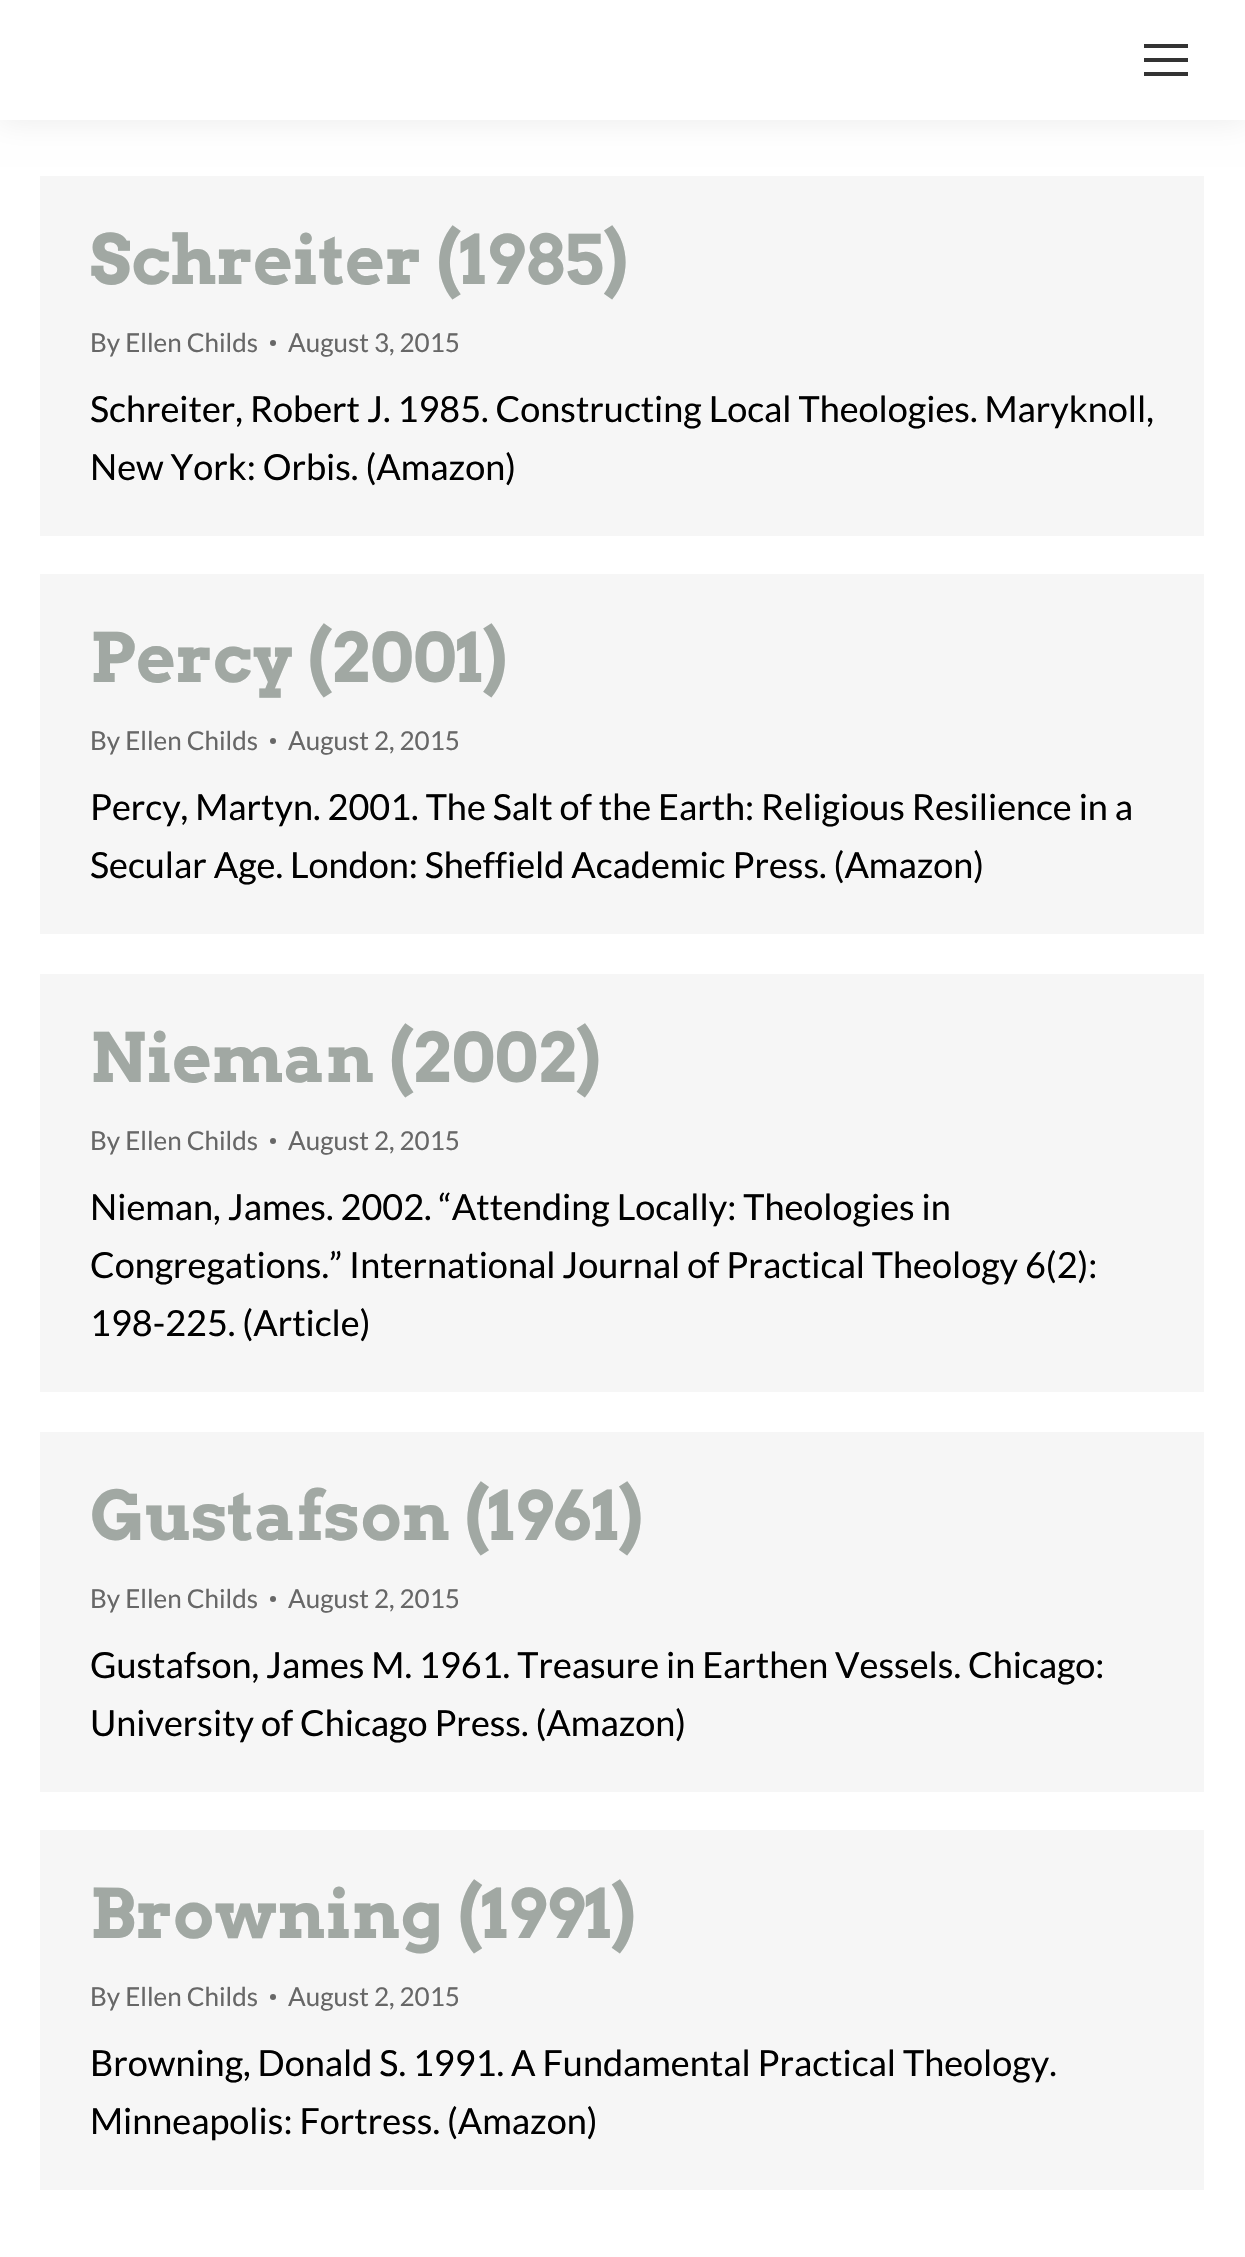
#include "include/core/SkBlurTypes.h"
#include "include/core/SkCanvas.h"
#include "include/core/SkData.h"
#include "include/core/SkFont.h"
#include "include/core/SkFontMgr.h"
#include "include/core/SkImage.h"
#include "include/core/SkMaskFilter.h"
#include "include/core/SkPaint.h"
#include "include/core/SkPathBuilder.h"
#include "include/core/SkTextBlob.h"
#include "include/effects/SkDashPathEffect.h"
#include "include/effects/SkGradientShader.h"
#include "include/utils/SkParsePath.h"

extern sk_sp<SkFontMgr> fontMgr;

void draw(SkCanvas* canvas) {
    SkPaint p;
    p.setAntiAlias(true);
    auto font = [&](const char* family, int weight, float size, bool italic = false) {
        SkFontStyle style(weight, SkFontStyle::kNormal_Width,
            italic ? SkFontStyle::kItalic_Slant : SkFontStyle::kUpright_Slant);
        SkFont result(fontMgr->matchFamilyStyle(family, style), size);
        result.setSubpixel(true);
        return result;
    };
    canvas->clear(0xFFFFFFFF);
    p.setColor(0x12000000);
    p.setMaskFilter(SkMaskFilter::MakeBlur(kNormal_SkBlurStyle, 15));
    canvas->drawRect(SkRect::MakeLTRB(-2, -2, 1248, 122), p);
    p.setMaskFilter(nullptr);
    {
        const struct { float l, t, r, b; SkColor color; } items[] = {
            {0, 0, 1245, 120, 0xFFFFFFFF},
            {1144, 44, 1188, 48, 0xFF333333},
            {1144, 58, 1188, 62, 0xFF333333},
            {1144, 72, 1188, 76, 0xFF333333},
            {40, 176, 1204, 536, 0xFFF6F6F6},
        };
        for (auto [l, t, r, b, color] : items) {
            p.setColor(color);
            canvas->drawRect(SkRect::MakeLTRB(l, t, r, b), p);
        }
    }
    auto font1 = font("Arvo", 700, 68);
    p.setColor(0xFFA1A8A3);
    canvas->drawString("Schreiter (1985)", 90, 284, font1, p);
    auto font2 = font("Lato", 400, 26);
    p.setColor(0xFF676767);
    canvas->drawString("By Ellen Childs", 90, 352, font2, p);
    canvas->drawCircle(273, 343, 3, p);
    canvas->drawString("August 3, 2015", 288, 352, font2, p);
    auto font3 = font("Lato", 400, 36);
    p.setColor(0xFF000000);
    canvas->drawString("Schreiter, Robert J. 1985. Constructing Local Theologies. Maryknoll,", 90, 422, font3, p);
    canvas->drawString("New York: Orbis. (Amazon)", 90, 480, font3, p);
    p.setColor(0xFFF6F6F6);
    canvas->drawRect(SkRect::MakeLTRB(40, 574, 1204, 934), p);
    p.setColor(0xFFA1A8A3);
    canvas->drawString("Percy (2001)", 90, 682, font1, p);
    p.setColor(0xFF676767);
    canvas->drawString("By Ellen Childs", 90, 750, font2, p);
    canvas->drawCircle(273, 741, 3, p);
    canvas->drawString("August 2, 2015", 288, 750, font2, p);
    p.setColor(0xFF000000);
    canvas->drawString("Percy, Martyn. 2001. The Salt of the Earth: Religious Resilience in a", 90, 820, font3, p);
    canvas->drawString("Secular Age. London: Sheffield Academic Press. (Amazon)", 90, 878, font3, p);
    p.setColor(0xFFF6F6F6);
    canvas->drawRect(SkRect::MakeLTRB(40, 974, 1204, 1392), p);
    p.setColor(0xFFA1A8A3);
    canvas->drawString("Nieman (2002)", 90, 1082, font1, p);
    p.setColor(0xFF676767);
    canvas->drawString("By Ellen Childs", 90, 1150, font2, p);
    canvas->drawCircle(273, 1141, 3, p);
    canvas->drawString("August 2, 2015", 288, 1150, font2, p);
    p.setColor(0xFF000000);
    {
        const struct { const char* s; float x, y; } items[] = {
            {"Nieman, James. 2002. “Attending Locally: Theologies in", 90, 1220},
            {"Congregations.” International Journal of Practical Theology 6(2):", 90, 1278},
            {"198-225. (Article)", 90, 1336},
        };
        for (auto [s, x, y] : items) {
            canvas->drawString(s, x, y, font3, p);
        }
    }
    p.setColor(0xFFF6F6F6);
    canvas->drawRect(SkRect::MakeLTRB(40, 1432, 1204, 1792), p);
    p.setColor(0xFFA1A8A3);
    canvas->drawString("Gustafson (1961)", 90, 1540, font1, p);
    p.setColor(0xFF676767);
    canvas->drawString("By Ellen Childs", 90, 1608, font2, p);
    canvas->drawCircle(273, 1599, 3, p);
    canvas->drawString("August 2, 2015", 288, 1608, font2, p);
    p.setColor(0xFF000000);
    canvas->drawString("Gustafson, James M. 1961. Treasure in Earthen Vessels. Chicago:", 90, 1678, font3, p);
    canvas->drawString("University of Chicago Press. (Amazon)", 90, 1736, font3, p);
    p.setColor(0xFFF6F6F6);
    canvas->drawRect(SkRect::MakeLTRB(40, 1830, 1204, 2190), p);
    p.setColor(0xFFA1A8A3);
    canvas->drawString("Browning (1991)", 90, 1938, font1, p);
    p.setColor(0xFF676767);
    canvas->drawString("By Ellen Childs", 90, 2006, font2, p);
    canvas->drawCircle(273, 1997, 3, p);
    canvas->drawString("August 2, 2015", 288, 2006, font2, p);
    p.setColor(0xFF000000);
    canvas->drawString("Browning, Donald S. 1991. A Fundamental Practical Theology.", 90, 2076, font3, p);
    canvas->drawString("Minneapolis: Fortress. (Amazon)", 90, 2134, font3, p);
}
